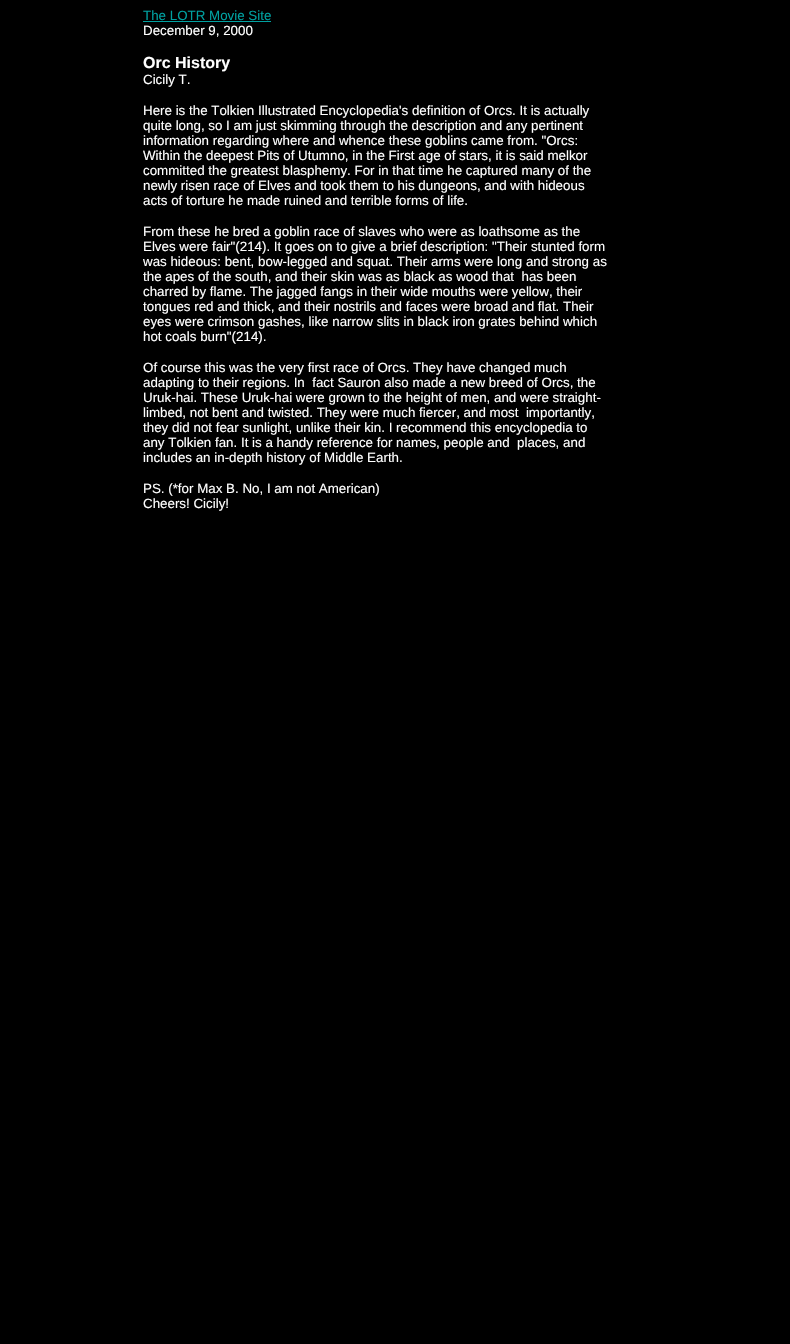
#include "include/core/SkBlurTypes.h"
#include "include/core/SkCanvas.h"
#include "include/core/SkData.h"
#include "include/core/SkFont.h"
#include "include/core/SkFontMgr.h"
#include "include/core/SkImage.h"
#include "include/core/SkMaskFilter.h"
#include "include/core/SkPaint.h"
#include "include/core/SkPathBuilder.h"
#include "include/core/SkTextBlob.h"
#include "include/effects/SkDashPathEffect.h"
#include "include/effects/SkGradientShader.h"
#include "include/utils/SkParsePath.h"

extern sk_sp<SkFontMgr> fontMgr;

void draw(SkCanvas* canvas) {
    SkPaint p;
    p.setAntiAlias(true);
    auto font = [&](const char* family, int weight, float size, bool italic = false) {
        SkFontStyle style(weight, SkFontStyle::kNormal_Width,
            italic ? SkFontStyle::kItalic_Slant : SkFontStyle::kUpright_Slant);
        SkFont result(fontMgr->matchFamilyStyle(family, style), size);
        result.setSubpixel(true);
        return result;
    };
    canvas->clear(0xFF000000);
    auto font1 = font("Liberation Sans", 400, 13.35f);
    p.setColor(0xFF00A0A0);
    canvas->drawString("The LOTR Movie Site", 143, 20, font1, p);
    canvas->drawRect(SkRect::MakeLTRB(143, 21, 271, 22), p);
    p.setColor(0xFFFFFFFF);
    canvas->drawString("December 9, 2000", 143, 35, font1, p);
    auto font2 = font("Liberation Sans", 700, 16);
    canvas->drawString("Orc History", 143, 68, font2, p);
    {
        const struct { const char* s; float x, y; } items[] = {
            {"Cicily T.", 143, 84},
            {"Here is the Tolkien Illustrated Encyclopedia's definition of Orcs. It is actually", 143, 115},
            {"quite long, so I am just skimming through the description and any pertinent", 143, 130},
            {"information regarding where and whence these goblins came from. \"Orcs:", 143, 145},
            {"Within the deepest Pits of Utumno, in the First age of stars, it is said melkor", 143, 160},
            {"committed the greatest blasphemy. For in that time he captured many of the", 143, 175},
            {"newly risen race of Elves and took them to his dungeons, and with hideous", 143, 190},
            {"acts of torture he made ruined and terrible forms of life.", 143, 205},
            {"From these he bred a goblin race of slaves who were as loathsome as the", 143, 236},
            {"Elves were fair\"(214). It goes on to give a brief description: \"Their stunted form", 143, 251},
            {"was hideous: bent, bow-legged and squat. Their arms were long and strong as", 143, 266},
            {"the apes of the south, and their skin was as black as wood that  has been", 143, 281},
            {"charred by flame. The jagged fangs in their wide mouths were yellow, their", 143, 296},
            {"tongues red and thick, and their nostrils and faces were broad and flat. Their", 143, 311},
            {"eyes were crimson gashes, like narrow slits in black iron grates behind which", 143, 326},
            {"hot coals burn\"(214).", 143, 341},
            {"Of course this was the very first race of Orcs. They have changed much", 143, 372},
            {"adapting to their regions. In  fact Sauron also made a new breed of Orcs, the", 143, 387},
            {"Uruk-hai. These Uruk-hai were grown to the height of men, and were straight-", 143, 402},
            {"limbed, not bent and twisted. They were much fiercer, and most  importantly,", 143, 417},
            {"they did not fear sunlight, unlike their kin. I recommend this encyclopedia to", 143, 432},
            {"any Tolkien fan. It is a handy reference for names, people and  places, and", 143, 447},
            {"includes an in-depth history of Middle Earth.", 143, 462},
            {"PS. (*for Max B. No, I am not American)", 143, 493},
            {"Cheers! Cicily!", 143, 508},
        };
        for (auto [s, x, y] : items) {
            canvas->drawString(s, x, y, font1, p);
        }
    }
}
